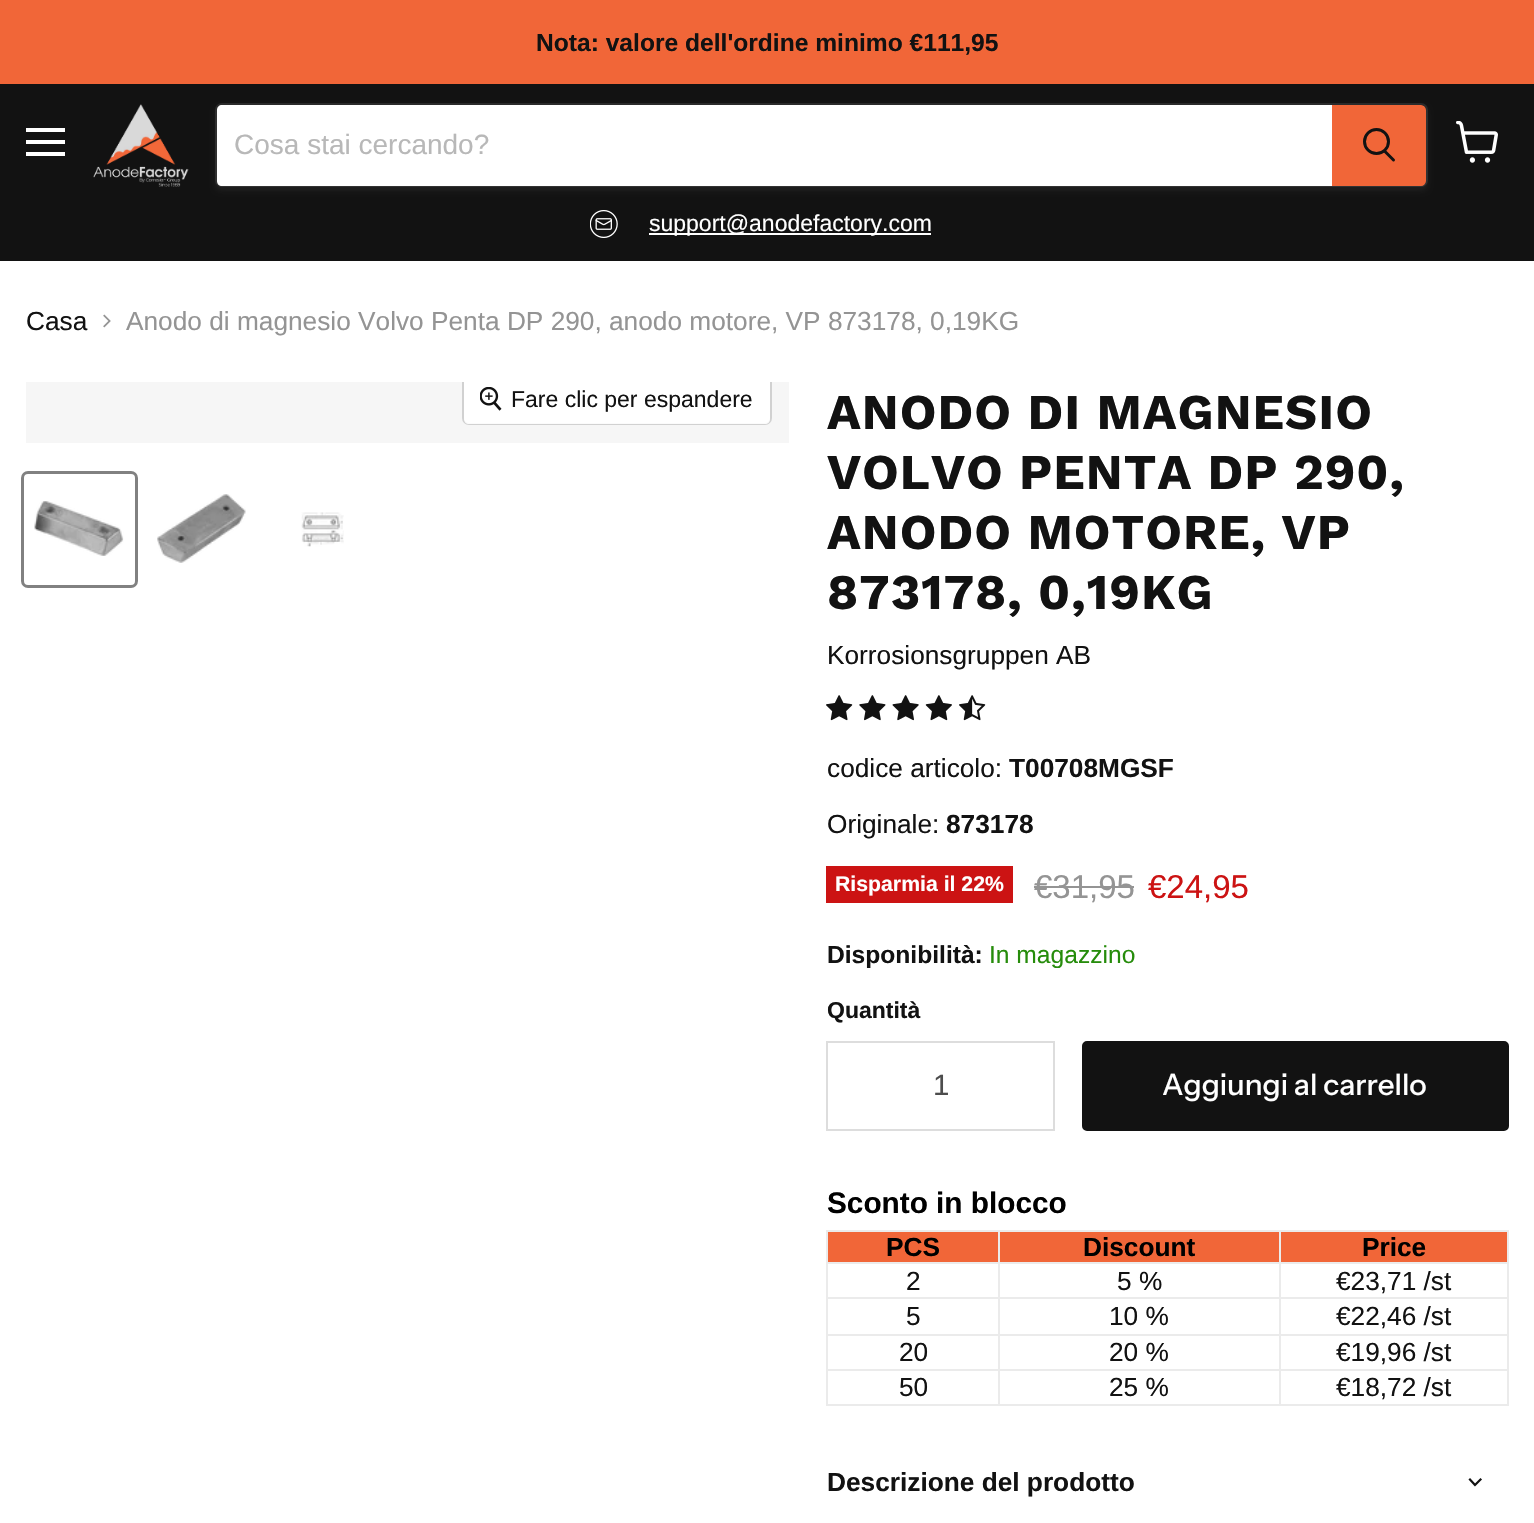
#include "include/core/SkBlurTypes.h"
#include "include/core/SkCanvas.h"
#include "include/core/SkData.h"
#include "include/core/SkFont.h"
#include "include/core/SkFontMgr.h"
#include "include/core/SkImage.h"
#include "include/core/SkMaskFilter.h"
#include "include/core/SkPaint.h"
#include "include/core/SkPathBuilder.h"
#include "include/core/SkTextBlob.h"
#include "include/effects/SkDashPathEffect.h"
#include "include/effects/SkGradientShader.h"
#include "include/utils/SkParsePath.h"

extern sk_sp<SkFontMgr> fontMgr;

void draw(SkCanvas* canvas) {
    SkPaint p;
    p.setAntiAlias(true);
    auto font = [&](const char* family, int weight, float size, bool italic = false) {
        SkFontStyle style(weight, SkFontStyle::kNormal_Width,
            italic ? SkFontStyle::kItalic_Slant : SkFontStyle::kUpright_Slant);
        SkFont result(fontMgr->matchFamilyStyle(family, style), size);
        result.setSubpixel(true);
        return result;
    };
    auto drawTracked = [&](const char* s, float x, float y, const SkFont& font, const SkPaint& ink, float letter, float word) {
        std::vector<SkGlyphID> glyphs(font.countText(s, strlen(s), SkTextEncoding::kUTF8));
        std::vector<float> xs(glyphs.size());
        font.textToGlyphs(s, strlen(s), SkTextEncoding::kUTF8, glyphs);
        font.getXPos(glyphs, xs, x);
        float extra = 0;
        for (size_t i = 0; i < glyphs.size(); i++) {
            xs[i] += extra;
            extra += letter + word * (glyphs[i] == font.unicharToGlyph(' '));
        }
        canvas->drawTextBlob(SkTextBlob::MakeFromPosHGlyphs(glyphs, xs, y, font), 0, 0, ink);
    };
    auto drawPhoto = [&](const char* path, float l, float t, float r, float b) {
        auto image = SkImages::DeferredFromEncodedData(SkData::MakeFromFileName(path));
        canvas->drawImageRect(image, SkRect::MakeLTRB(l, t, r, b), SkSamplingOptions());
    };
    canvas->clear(0xFFFFFFFF);
    p.setColor(0xFFF16638);
    canvas->drawRect(SkRect::MakeLTRB(0, 0, 1534, 84), p);
    auto font1 = font("Liberation Sans", 700, 24.6f);
    p.setColor(0xFF121212);
    canvas->drawString("Nota: valore dell'ordine minimo €111,95", 536, 51, font1, p);
    {
        const struct { float l, t, r, b; SkColor color; } items[] = {
            {0, 84, 1534, 261, 0xFF121212},
            {26, 128, 65, 132, 0xFFFFFFFF},
            {26, 140, 65, 144, 0xFFFFFFFF},
            {26, 152, 65, 156, 0xFFFFFFFF},
        };
        for (auto [l, t, r, b, color] : items) {
            p.setColor(color);
            canvas->drawRect(SkRect::MakeLTRB(l, t, r, b), p);
        }
    }
    drawPhoto("media/1.png", 93, 104, 189, 187);
    p.setColor(0x1C808080);
    p.setMaskFilter(SkMaskFilter::MakeBlur(kNormal_SkBlurStyle, 2.5f));
    canvas->drawRoundRect(SkRect::MakeLTRB(215, 107, 1428, 191), 7, 7, p);
    p.setMaskFilter(nullptr);
    p.setStyle(SkPaint::kStroke_Style);
    p.setStrokeWidth(2);
    p.setColor(0x33808080);
    canvas->drawRoundRect(SkRect::MakeLTRB(216, 104, 1427, 186), 6, 6, p);
    p.setStyle(SkPaint::kFill_Style);
    p.setColor(0xFFFFFFFF);
    canvas->drawPath(SkPathBuilder().moveTo(222, 105).lineTo(1332, 105).lineTo(1332, 186).lineTo(222, 186).cubicTo(219, 186, 217, 184, 217, 181).lineTo(217, 110).cubicTo(217, 107, 219, 105, 222, 105).close().detach(), p);
    auto font2 = font("Liberation Sans", 400, 28);
    p.setColor(0xFFB8B8B8);
    canvas->drawString("Cosa stai cercando?", 234, 154, font2, p);
    p.setColor(0xFFF16638);
    canvas->drawPath(SkPathBuilder().moveTo(1333, 106).lineTo(1421, 106).cubicTo(1423, 106, 1425, 108, 1425, 110).lineTo(1425, 181).cubicTo(1425, 183, 1423, 185, 1421, 185).lineTo(1333, 185).close().detach(), p);
    p.setStyle(SkPaint::kStroke_Style);
    canvas->drawPath(SkPathBuilder().moveTo(1333, 106).lineTo(1421, 106).cubicTo(1423, 106, 1425, 108, 1425, 110).lineTo(1425, 181).cubicTo(1425, 183, 1423, 185, 1421, 185).lineTo(1333, 185).close().detach(), p);
    p.setStrokeWidth(3);
    p.setStrokeCap(SkPaint::kRound_Cap);
    p.setColor(0xFF121212);
    canvas->drawPath(SkPathBuilder().moveTo(1393.5f, 160).lineTo(1385, 151.5f).detach(), p);
    p.setStrokeCap(SkPaint::kButt_Cap);
    canvas->drawCircle(1376.5f, 141.5f, 12, p);
    drawPhoto("media/2.png", 590, 210, 618, 238);
    p.setStyle(SkPaint::kFill_Style);
    p.setColor(0xFFFFFFFF);
    canvas->drawRect(SkRect::MakeLTRB(649, 233, 931, 235), p);
    auto font3 = font("Liberation Sans", 400, 23);
    canvas->drawString("support@anodefactory.com", 649, 231, font3, p);
    drawPhoto("media/3.png", 1456, 121, 1498, 163);
    auto font4 = font("Liberation Sans", 400, 26.25f);
    p.setColor(0xFF121212);
    canvas->drawString("Casa", 26, 330, font4, p);
    drawPhoto("media/4.png", 103, 314, 111, 328);
    p.setColor(0xFF949494);
    canvas->drawString("Anodo di magnesio Volvo Penta DP 290, anodo motore, VP 873178, 0,19KG", 126, 330, font4, p);
    p.setColor(0xFFF6F6F6);
    canvas->drawRect(SkRect::MakeLTRB(26, 382, 789, 443), p);
    canvas->save();
    canvas->clipRect(SkRect::MakeLTRB(26, 382, 789, 443));
    p.setStyle(SkPaint::kStroke_Style);
    p.setStrokeWidth(2);
    p.setColor(0xFFD1D1D1);
    canvas->drawRoundRect(SkRect::MakeLTRB(463, 374, 771, 424), 6, 6, p);
    canvas->restore();
    p.setStyle(SkPaint::kFill_Style);
    p.setColor(0xE6FFFFFF);
    canvas->drawPath(SkPathBuilder().moveTo(464, 382).lineTo(770, 382).lineTo(770, 419).cubicTo(770, 422, 768, 424, 765, 424).lineTo(469, 424).cubicTo(466, 424, 464, 422, 464, 419).close().detach(), p);
    drawPhoto("media/5.png", 480, 387, 502, 411);
    p.setColor(0xFF121212);
    canvas->drawString("Fare clic per espandere", 511, 407, font3, p);
    p.setStyle(SkPaint::kStroke_Style);
    p.setStrokeWidth(3);
    p.setColor(0xFF818181);
    canvas->drawRoundRect(SkRect::MakeLTRB(22.5f, 472.5f, 136.5f, 586.5f), 5.5f, 5.5f, p);
    drawPhoto("media/6.png", 34, 501, 124, 556);
    drawPhoto("media/7.png", 157, 494, 246, 563);
    drawPhoto("media/8.png", 301, 512, 344, 547);
    auto font5 = font("Work Sans", 700, 49.9f);
    p.setStyle(SkPaint::kFill_Style);
    p.setColor(0xFF121212);
    {
        const struct { const char* s; float x, y; } items[] = {
            {"ANODO DI MAGNESIO", 827, 429},
            {"VOLVO PENTA DP 290,", 827, 489},
            {"ANODO MOTORE, VP", 827, 549},
            {"873178, 0,19KG", 827, 609},
        };
        for (auto [s, x, y] : items) {
            drawTracked(s, x, y, font5, p, 1, 0);
        }
    }
    canvas->drawString("Korrosionsgruppen AB", 827, 664, font4, p);
    drawPhoto("media/9.png", 826, 695, 853, 721);
    drawPhoto("media/10.png", 859, 695, 886, 721);
    drawPhoto("media/11.png", 892, 695, 919, 721);
    drawPhoto("media/12.png", 925, 695, 952, 721);
    drawPhoto("media/13.png", 959, 695, 986, 721);
    canvas->drawString("codice articolo:", 827, 777, font4, p);
    auto font6 = font("Liberation Sans", 700, 26.25f);
    canvas->drawString("T00708MGSF", 1009, 777, font6, p);
    canvas->drawString("Originale:", 827, 833, font4, p);
    canvas->drawString("873178", 946, 833, font6, p);
    p.setColor(0xFFCC1313);
    canvas->drawRect(SkRect::MakeLTRB(826, 866, 1013, 903), p);
    auto font7 = font("Liberation Sans", 700, 21.25f);
    p.setColor(0xFFFFFFFF);
    canvas->drawString("Risparmia il 22%", 835, 891, font7, p);
    auto font8 = font("Liberation Sans", 400, 33);
    p.setColor(0xFF949494);
    canvas->drawString("€31,95", 1034, 898, font8, p);
    canvas->drawRect(SkRect::MakeLTRB(1034, 886, 1134, 888), p);
    p.setColor(0xFFCC1313);
    canvas->drawString("€24,95", 1148, 898, font8, p);
    p.setColor(0xFF121212);
    canvas->drawString("Disponibilità:", 827, 963, font1, p);
    auto font9 = font("Liberation Sans", 400, 24.6f);
    p.setColor(0xFF268C0B);
    canvas->drawString("In magazzino", 989, 963, font9, p);
    auto font10 = font("Liberation Sans", 700, 23);
    p.setColor(0xFF121212);
    canvas->drawString("Quantità", 827, 1018, font10, p);
    p.setStyle(SkPaint::kStroke_Style);
    p.setStrokeWidth(2);
    p.setColor(0xFFDDDDDD);
    canvas->drawRect(SkRect::MakeLTRB(827, 1042, 1054, 1130), p);
    auto font11 = font("Liberation Sans", 400, 29.5f);
    p.setStyle(SkPaint::kFill_Style);
    p.setColor(0xFF4D4D4D);
    canvas->drawString("1", 933, 1095, font11, p);
    p.setColor(0xFF121212);
    canvas->drawRoundRect(SkRect::MakeLTRB(1083, 1042, 1508, 1130), 4, 4, p);
    p.setStyle(SkPaint::kStroke_Style);
    canvas->drawRoundRect(SkRect::MakeLTRB(1083, 1042, 1508, 1130), 4, 4, p);
    auto font12 = font("Instrument Sans", 500, 29.5f);
    p.setStyle(SkPaint::kFill_Style);
    p.setColor(0xFFFFFFFF);
    canvas->drawString("Aggiungi al carrello", 1162, 1095, font12, p);
    auto font13 = font("Liberation Sans", 700, 29.75f);
    p.setColor(0xFF000000);
    canvas->drawString("Sconto in blocco", 827, 1213, font13, p);
    {
        const struct { float l, t, r, b; SkColor color; } items[] = {
            {828, 1232, 998, 1262, 0xFFF16638},
            {1279, 1230, 1509, 1232, 0xFFEBEBEB},
            {1279, 1262, 1509, 1264, 0xFFEBEBEB},
            {1279, 1297, 1509, 1299, 0xFFEBEBEB},
            {1279, 1334, 1509, 1336, 0xFFEBEBEB},
            {1279, 1369, 1509, 1371, 0xFFEBEBEB},
            {1507, 1369, 1509, 1405, 0xFFEBEBEB},
            {1279, 1404, 1509, 1406, 0xFFEBEBEB},
            {1279, 1369, 1281, 1405, 0xFFEBEBEB},
            {998, 1369, 1281, 1371, 0xFFEBEBEB},
            {1279, 1334, 1281, 1370, 0xFFEBEBEB},
            {998, 1334, 1281, 1336, 0xFFEBEBEB},
            {1279, 1297, 1281, 1335, 0xFFEBEBEB},
            {998, 1297, 1281, 1299, 0xFFEBEBEB},
            {1279, 1262, 1281, 1299, 0xFFEBEBEB},
            {998, 1262, 1281, 1264, 0xFFEBEBEB},
            {1279, 1230, 1281, 1264, 0xFFEBEBEB},
            {998, 1230, 1281, 1232, 0xFFEBEBEB},
            {998, 1404, 1281, 1406, 0xFFEBEBEB},
            {998, 1369, 1000, 1405, 0xFFEBEBEB},
            {826, 1369, 999, 1371, 0xFFEBEBEB},
            {998, 1334, 1000, 1370, 0xFFEBEBEB},
            {826, 1334, 999, 1336, 0xFFEBEBEB},
            {998, 1297, 1000, 1335, 0xFFEBEBEB},
            {826, 1297, 999, 1299, 0xFFEBEBEB},
            {998, 1262, 1000, 1299, 0xFFEBEBEB},
            {826, 1262, 999, 1264, 0xFFEBEBEB},
            {998, 1230, 1000, 1264, 0xFFEBEBEB},
            {826, 1230, 999, 1232, 0xFFEBEBEB},
            {826, 1404, 999, 1406, 0xFFEBEBEB},
            {826, 1369, 828, 1405, 0xFFEBEBEB},
            {826, 1334, 828, 1370, 0xFFEBEBEB},
            {826, 1297, 828, 1335, 0xFFEBEBEB},
            {826, 1262, 828, 1299, 0xFFEBEBEB},
            {826, 1230, 828, 1264, 0xFFEBEBEB},
        };
        for (auto [l, t, r, b, color] : items) {
            p.setColor(color);
            canvas->drawRect(SkRect::MakeLTRB(l, t, r, b), p);
        }
    }
    p.setColor(0xFF000000);
    canvas->drawString("PCS", 886, 1256, font6, p);
    p.setColor(0xFFF16638);
    canvas->drawRect(SkRect::MakeLTRB(1000, 1232, 1279, 1262), p);
    p.setColor(0xFF000000);
    canvas->drawString("Discount", 1083, 1256, font6, p);
    {
        const struct { float l, t, r, b; SkColor color; } items[] = {
            {1281, 1232, 1507, 1262, 0xFFF16638},
            {1507, 1334, 1509, 1370, 0xFFEBEBEB},
            {1507, 1297, 1509, 1335, 0xFFEBEBEB},
            {1507, 1262, 1509, 1299, 0xFFEBEBEB},
            {1507, 1230, 1509, 1264, 0xFFEBEBEB},
        };
        for (auto [l, t, r, b, color] : items) {
            p.setColor(color);
            canvas->drawRect(SkRect::MakeLTRB(l, t, r, b), p);
        }
    }
    p.setColor(0xFF000000);
    canvas->drawString("Price", 1362, 1256, font6, p);
    p.setColor(0xFF121212);
    {
        const struct { const char* s; float x, y; } items[] = {
            {"2", 906, 1290},
            {"5 %", 1117, 1290},
            {"€23,71 /st", 1336, 1290},
            {"5", 906, 1325},
            {"10 %", 1109, 1325},
            {"€22,46 /st", 1336, 1325},
            {"20", 899, 1361},
            {"20 %", 1109, 1361},
            {"€19,96 /st", 1336, 1361},
            {"50", 899, 1396},
            {"25 %", 1109, 1396},
            {"€18,72 /st", 1336, 1396},
        };
        for (auto [s, x, y] : items) {
            canvas->drawString(s, x, y, font4, p);
        }
    }
    canvas->drawString("Descrizione del prodotto", 827, 1491, font6, p);
    p.setStyle(SkPaint::kStroke_Style);
    p.setStrokeWidth(2.2f);
    p.setStrokeCap(SkPaint::kSquare_Cap);
    canvas->drawPath(SkPathBuilder().moveTo(1475, 1485).lineTo(1480.5f, 1479.5f).moveTo(1475, 1485).lineTo(1470, 1479.5f).detach(), p);
}
